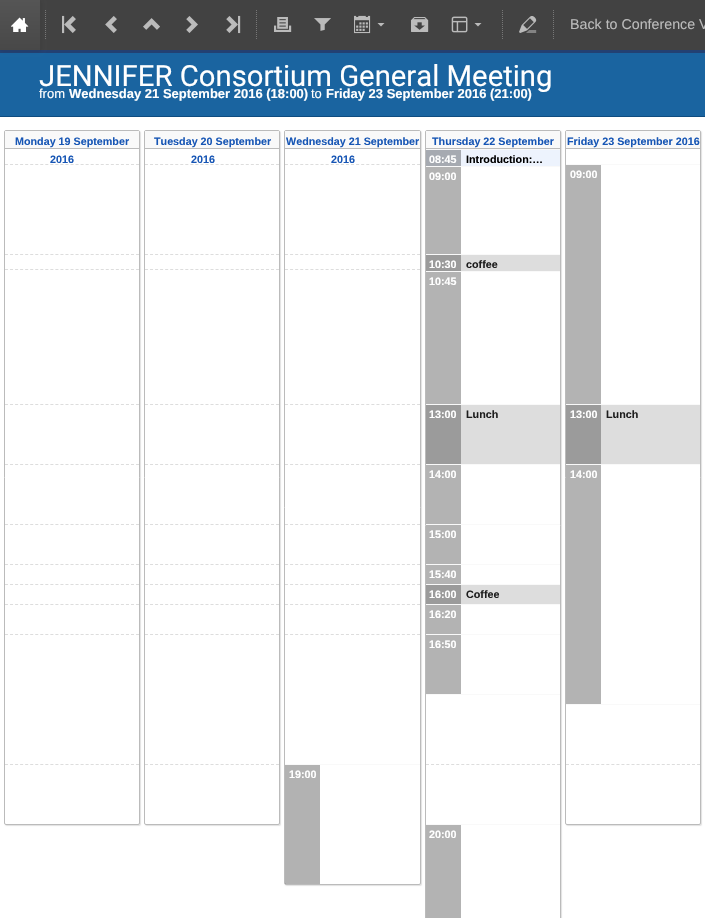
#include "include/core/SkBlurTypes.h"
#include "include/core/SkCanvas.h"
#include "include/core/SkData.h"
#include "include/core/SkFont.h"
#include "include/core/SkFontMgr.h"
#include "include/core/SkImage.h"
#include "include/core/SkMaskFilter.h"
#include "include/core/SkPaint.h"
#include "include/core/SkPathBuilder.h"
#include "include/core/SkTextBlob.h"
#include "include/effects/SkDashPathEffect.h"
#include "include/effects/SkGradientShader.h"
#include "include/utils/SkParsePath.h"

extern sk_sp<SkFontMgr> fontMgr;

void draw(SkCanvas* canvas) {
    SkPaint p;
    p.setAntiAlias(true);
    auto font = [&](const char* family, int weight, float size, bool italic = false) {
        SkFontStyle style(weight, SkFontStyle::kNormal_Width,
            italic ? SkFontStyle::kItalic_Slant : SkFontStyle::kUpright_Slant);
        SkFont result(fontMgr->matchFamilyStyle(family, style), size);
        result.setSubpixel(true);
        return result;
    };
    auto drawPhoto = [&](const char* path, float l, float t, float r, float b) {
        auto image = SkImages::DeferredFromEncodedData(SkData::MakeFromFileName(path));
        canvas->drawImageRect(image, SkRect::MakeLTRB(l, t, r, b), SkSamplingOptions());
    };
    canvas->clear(0xFFFFFFFF);
    {
        const struct { float l, t, r, b; SkColor color; } items[] = {
            {40, 0, 705, 50, 0xFF424242},
            {0, 53, 705, 116, 0xFF1A64A0},
            {0, 50, 705, 53, 0xFF234173},
        };
        for (auto [l, t, r, b, color] : items) {
            p.setColor(color);
            canvas->drawRect(SkRect::MakeLTRB(l, t, r, b), p);
        }
    }
    p.setColor(0x1A141414);
    p.setMaskFilter(SkMaskFilter::MakeBlur(kNormal_SkBlurStyle, 2));
    canvas->drawRect(SkRect::MakeLTRB(1, 1, 41, 51), p);
    p.setMaskFilter(nullptr);
    {
        const SkColor colors[] = {0xFF555555, 0xFF484848};
        const float stops[] = {0, 1};
        const SkPoint ends[] = {{20, 0}, {20, 50}};
        p.setShader(SkGradientShader::MakeLinear(ends, colors, stops, 2, SkTileMode::kClamp));
        p.setAlpha(255);
    }
    canvas->drawRect(SkRect::MakeLTRB(0, 0, 40, 50), p);
    drawPhoto("media/1.png", 11, 17, 29, 32);
    p.setStyle(SkPaint::kStroke_Style);
    p.setStrokeWidth(1);
    p.setShader(nullptr);
    p.setColor(0xFF777777);
    p.setPathEffect(SkDashPathEffect::Make({{1, 1}}, 0));
    canvas->drawPath(SkPathBuilder().moveTo(45.5f, 10).lineTo(45.5f, 40).detach(), p);
    p.setPathEffect(nullptr);
    drawPhoto("media/2.png", 62, 15, 76, 34);
    drawPhoto("media/3.png", 105, 16, 117, 33);
    drawPhoto("media/4.png", 143, 18, 160, 30);
    drawPhoto("media/5.png", 186, 16, 198, 33);
    drawPhoto("media/6.png", 226, 15, 241, 34);
    p.setPathEffect(SkDashPathEffect::Make({{1, 1}}, 0));
    canvas->drawPath(SkPathBuilder().moveTo(256.5f, 10).lineTo(256.5f, 40).detach(), p);
    p.setPathEffect(nullptr);
    drawPhoto("media/7.png", 274, 17, 292, 32);
    drawPhoto("media/8.png", 314, 18, 331, 31);
    drawPhoto("media/9.png", 354, 15, 371, 34);
    p.setStyle(SkPaint::kFill_Style);
    p.setColor(0xFFBBBBBB);
    canvas->drawPath(SkPathBuilder().moveTo(377.5f, 23).lineTo(381, 26.5f).lineTo(384.5f, 23).close().detach(), p);
    drawPhoto("media/10.png", 411, 17, 429, 32);
    drawPhoto("media/11.png", 451, 16, 468, 33);
    canvas->drawPath(SkPathBuilder().moveTo(474.5f, 23).lineTo(478, 26.5f).lineTo(481.5f, 23).close().detach(), p);
    p.setStyle(SkPaint::kStroke_Style);
    p.setColor(0xFF777777);
    p.setPathEffect(SkDashPathEffect::Make({{1, 1}}, 0));
    canvas->drawPath(SkPathBuilder().moveTo(502.5f, 10).lineTo(502.5f, 40).detach(), p);
    p.setPathEffect(nullptr);
    drawPhoto("media/12.png", 519, 16, 537, 33);
    p.setPathEffect(SkDashPathEffect::Make({{1, 1}}, 0));
    canvas->drawPath(SkPathBuilder().moveTo(553.5f, 10).lineTo(553.5f, 40).detach(), p);
    p.setPathEffect(nullptr);
    auto font1 = font("Liberation Sans", 400, 14.25f);
    p.setStyle(SkPaint::kFill_Style);
    p.setColor(0xFFBBBBBB);
    canvas->drawString("Back to Conference V", 570, 29, font1, p);
    p.setColor(0xFF0F4C80);
    canvas->drawRect(SkRect::MakeLTRB(0, 116, 705, 117), p);
    auto font2 = font("Roboto", 400, 29.3f);
    p.setColor(0xFFFFFFFF);
    canvas->drawString("JENNIFER Consortium General Meeting", 39, 86, font2, p);
    auto font3 = font("Liberation Sans", 400, 13);
    canvas->drawString("from", 39, 98, font3, p);
    auto font4 = font("Liberation Sans", 700, 13);
    canvas->drawString("Wednesday 21 September 2016 (18:00)", 69, 98, font4, p);
    canvas->drawString("to", 311, 98, font3, p);
    canvas->drawString("Friday 23 September 2016 (21:00)", 326, 98, font4, p);
    p.setColor(0xFFE1E1E1);
    p.setMaskFilter(SkMaskFilter::MakeBlur(kNormal_SkBlurStyle, 0.5f));
    canvas->drawRoundRect(SkRect::MakeLTRB(5, 131, 141, 826), 2, 2, p);
    p.setMaskFilter(nullptr);
    p.setColor(0xFFFFFFFF);
    canvas->drawRoundRect(SkRect::MakeLTRB(4.5f, 130.5f, 139.5f, 824.5f), 1.5f, 1.5f, p);
    p.setStyle(SkPaint::kStroke_Style);
    p.setColor(0xFFBBBBBB);
    canvas->drawRoundRect(SkRect::MakeLTRB(4.5f, 130.5f, 139.5f, 824.5f), 1.5f, 1.5f, p);
    p.setStyle(SkPaint::kFill_Style);
    p.setColor(0xFFF9F9F9);
    canvas->drawRect(SkRect::MakeLTRB(5, 131, 139, 148), p);
    p.setColor(0xFFBBBBBB);
    canvas->drawRect(SkRect::MakeLTRB(5, 148, 139, 149), p);
    auto font5 = font("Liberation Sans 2", 700, 10.75f);
    p.setColor(0xFF1756B5);
    canvas->drawString("Monday 19 September", 15, 145, font5, p);
    canvas->drawString("2016", 50, 163, font5, p);
    p.setStyle(SkPaint::kStroke_Style);
    p.setColor(0xFFDDDDDD);
    p.setPathEffect(SkDashPathEffect::Make({{3, 2.04f}}, 0));
    canvas->drawPath(SkPathBuilder().moveTo(5, 164.5f).lineTo(139, 164.5f).detach(), p);
    p.setPathEffect(nullptr);
    p.setPathEffect(SkDashPathEffect::Make({{3, 2.04f}}, 0));
    canvas->drawPath(SkPathBuilder().moveTo(5, 254.5f).lineTo(139, 254.5f).detach(), p);
    p.setPathEffect(nullptr);
    p.setPathEffect(SkDashPathEffect::Make({{3, 2.04f}}, 0));
    canvas->drawPath(SkPathBuilder().moveTo(5, 269.5f).lineTo(139, 269.5f).detach(), p);
    p.setPathEffect(nullptr);
    p.setPathEffect(SkDashPathEffect::Make({{3, 2.04f}}, 0));
    canvas->drawPath(SkPathBuilder().moveTo(5, 404.5f).lineTo(139, 404.5f).detach(), p);
    p.setPathEffect(nullptr);
    p.setPathEffect(SkDashPathEffect::Make({{3, 2.04f}}, 0));
    canvas->drawPath(SkPathBuilder().moveTo(5, 464.5f).lineTo(139, 464.5f).detach(), p);
    p.setPathEffect(nullptr);
    p.setPathEffect(SkDashPathEffect::Make({{3, 2.04f}}, 0));
    canvas->drawPath(SkPathBuilder().moveTo(5, 524.5f).lineTo(139, 524.5f).detach(), p);
    p.setPathEffect(nullptr);
    p.setPathEffect(SkDashPathEffect::Make({{3, 2.04f}}, 0));
    canvas->drawPath(SkPathBuilder().moveTo(5, 564.5f).lineTo(139, 564.5f).detach(), p);
    p.setPathEffect(nullptr);
    p.setPathEffect(SkDashPathEffect::Make({{3, 2.04f}}, 0));
    canvas->drawPath(SkPathBuilder().moveTo(5, 584.5f).lineTo(139, 584.5f).detach(), p);
    p.setPathEffect(nullptr);
    p.setPathEffect(SkDashPathEffect::Make({{3, 2.04f}}, 0));
    canvas->drawPath(SkPathBuilder().moveTo(5, 604.5f).lineTo(139, 604.5f).detach(), p);
    p.setPathEffect(nullptr);
    p.setPathEffect(SkDashPathEffect::Make({{3, 2.04f}}, 0));
    canvas->drawPath(SkPathBuilder().moveTo(5, 634.5f).lineTo(139, 634.5f).detach(), p);
    p.setPathEffect(nullptr);
    p.setPathEffect(SkDashPathEffect::Make({{3, 2.04f}}, 0));
    canvas->drawPath(SkPathBuilder().moveTo(5, 764.5f).lineTo(139, 764.5f).detach(), p);
    p.setPathEffect(nullptr);
    p.setStyle(SkPaint::kFill_Style);
    p.setColor(0xFFE1E1E1);
    p.setMaskFilter(SkMaskFilter::MakeBlur(kNormal_SkBlurStyle, 0.5f));
    canvas->drawRoundRect(SkRect::MakeLTRB(145, 131, 281, 826), 2, 2, p);
    p.setMaskFilter(nullptr);
    p.setColor(0xFFFFFFFF);
    canvas->drawRoundRect(SkRect::MakeLTRB(144.5f, 130.5f, 279.5f, 824.5f), 1.5f, 1.5f, p);
    p.setStyle(SkPaint::kStroke_Style);
    p.setColor(0xFFBBBBBB);
    canvas->drawRoundRect(SkRect::MakeLTRB(144.5f, 130.5f, 279.5f, 824.5f), 1.5f, 1.5f, p);
    p.setStyle(SkPaint::kFill_Style);
    p.setColor(0xFFF9F9F9);
    canvas->drawRect(SkRect::MakeLTRB(145, 131, 279, 148), p);
    p.setColor(0xFFBBBBBB);
    canvas->drawRect(SkRect::MakeLTRB(145, 148, 279, 149), p);
    p.setColor(0xFF1756B5);
    canvas->drawString("Tuesday 20 September", 154, 145, font5, p);
    canvas->drawString("2016", 191, 163, font5, p);
    p.setStyle(SkPaint::kStroke_Style);
    p.setColor(0xFFDDDDDD);
    p.setPathEffect(SkDashPathEffect::Make({{3, 2.04f}}, 0));
    canvas->drawPath(SkPathBuilder().moveTo(145, 164.5f).lineTo(279, 164.5f).detach(), p);
    p.setPathEffect(nullptr);
    p.setPathEffect(SkDashPathEffect::Make({{3, 2.04f}}, 0));
    canvas->drawPath(SkPathBuilder().moveTo(145, 254.5f).lineTo(279, 254.5f).detach(), p);
    p.setPathEffect(nullptr);
    p.setPathEffect(SkDashPathEffect::Make({{3, 2.04f}}, 0));
    canvas->drawPath(SkPathBuilder().moveTo(145, 269.5f).lineTo(279, 269.5f).detach(), p);
    p.setPathEffect(nullptr);
    p.setPathEffect(SkDashPathEffect::Make({{3, 2.04f}}, 0));
    canvas->drawPath(SkPathBuilder().moveTo(145, 404.5f).lineTo(279, 404.5f).detach(), p);
    p.setPathEffect(nullptr);
    p.setPathEffect(SkDashPathEffect::Make({{3, 2.04f}}, 0));
    canvas->drawPath(SkPathBuilder().moveTo(145, 464.5f).lineTo(279, 464.5f).detach(), p);
    p.setPathEffect(nullptr);
    p.setPathEffect(SkDashPathEffect::Make({{3, 2.04f}}, 0));
    canvas->drawPath(SkPathBuilder().moveTo(145, 524.5f).lineTo(279, 524.5f).detach(), p);
    p.setPathEffect(nullptr);
    p.setPathEffect(SkDashPathEffect::Make({{3, 2.04f}}, 0));
    canvas->drawPath(SkPathBuilder().moveTo(145, 564.5f).lineTo(279, 564.5f).detach(), p);
    p.setPathEffect(nullptr);
    p.setPathEffect(SkDashPathEffect::Make({{3, 2.04f}}, 0));
    canvas->drawPath(SkPathBuilder().moveTo(145, 584.5f).lineTo(279, 584.5f).detach(), p);
    p.setPathEffect(nullptr);
    p.setPathEffect(SkDashPathEffect::Make({{3, 2.04f}}, 0));
    canvas->drawPath(SkPathBuilder().moveTo(145, 604.5f).lineTo(279, 604.5f).detach(), p);
    p.setPathEffect(nullptr);
    p.setPathEffect(SkDashPathEffect::Make({{3, 2.04f}}, 0));
    canvas->drawPath(SkPathBuilder().moveTo(145, 634.5f).lineTo(279, 634.5f).detach(), p);
    p.setPathEffect(nullptr);
    p.setPathEffect(SkDashPathEffect::Make({{3, 2.04f}}, 0));
    canvas->drawPath(SkPathBuilder().moveTo(145, 764.5f).lineTo(279, 764.5f).detach(), p);
    p.setPathEffect(nullptr);
    p.setStyle(SkPaint::kFill_Style);
    p.setColor(0xFFE1E1E1);
    p.setMaskFilter(SkMaskFilter::MakeBlur(kNormal_SkBlurStyle, 0.5f));
    canvas->drawRoundRect(SkRect::MakeLTRB(285, 131, 422, 886), 2, 2, p);
    p.setMaskFilter(nullptr);
    p.setColor(0xFFFFFFFF);
    canvas->drawRoundRect(SkRect::MakeLTRB(284.5f, 130.5f, 420.5f, 884.5f), 1.5f, 1.5f, p);
    p.setStyle(SkPaint::kStroke_Style);
    p.setColor(0xFFBBBBBB);
    canvas->drawRoundRect(SkRect::MakeLTRB(284.5f, 130.5f, 420.5f, 884.5f), 1.5f, 1.5f, p);
    p.setStyle(SkPaint::kFill_Style);
    p.setColor(0xFFF9F9F9);
    canvas->drawRect(SkRect::MakeLTRB(285, 131, 420, 148), p);
    p.setColor(0xFFBBBBBB);
    canvas->drawRect(SkRect::MakeLTRB(285, 148, 420, 149), p);
    p.setColor(0xFF1756B5);
    canvas->drawString("Wednesday 21 September", 286, 145, font5, p);
    canvas->drawString("2016", 331, 163, font5, p);
    p.setStyle(SkPaint::kStroke_Style);
    p.setColor(0xFFDDDDDD);
    p.setPathEffect(SkDashPathEffect::Make({{3, 2.08f}}, 0));
    canvas->drawPath(SkPathBuilder().moveTo(285, 164.5f).lineTo(420, 164.5f).detach(), p);
    p.setPathEffect(nullptr);
    p.setPathEffect(SkDashPathEffect::Make({{3, 2.08f}}, 0));
    canvas->drawPath(SkPathBuilder().moveTo(285, 254.5f).lineTo(420, 254.5f).detach(), p);
    p.setPathEffect(nullptr);
    p.setPathEffect(SkDashPathEffect::Make({{3, 2.08f}}, 0));
    canvas->drawPath(SkPathBuilder().moveTo(285, 269.5f).lineTo(420, 269.5f).detach(), p);
    p.setPathEffect(nullptr);
    p.setPathEffect(SkDashPathEffect::Make({{3, 2.08f}}, 0));
    canvas->drawPath(SkPathBuilder().moveTo(285, 404.5f).lineTo(420, 404.5f).detach(), p);
    p.setPathEffect(nullptr);
    p.setPathEffect(SkDashPathEffect::Make({{3, 2.08f}}, 0));
    canvas->drawPath(SkPathBuilder().moveTo(285, 464.5f).lineTo(420, 464.5f).detach(), p);
    p.setPathEffect(nullptr);
    p.setPathEffect(SkDashPathEffect::Make({{3, 2.08f}}, 0));
    canvas->drawPath(SkPathBuilder().moveTo(285, 524.5f).lineTo(420, 524.5f).detach(), p);
    p.setPathEffect(nullptr);
    p.setPathEffect(SkDashPathEffect::Make({{3, 2.08f}}, 0));
    canvas->drawPath(SkPathBuilder().moveTo(285, 564.5f).lineTo(420, 564.5f).detach(), p);
    p.setPathEffect(nullptr);
    p.setPathEffect(SkDashPathEffect::Make({{3, 2.08f}}, 0));
    canvas->drawPath(SkPathBuilder().moveTo(285, 584.5f).lineTo(420, 584.5f).detach(), p);
    p.setPathEffect(nullptr);
    p.setPathEffect(SkDashPathEffect::Make({{3, 2.08f}}, 0));
    canvas->drawPath(SkPathBuilder().moveTo(285, 604.5f).lineTo(420, 604.5f).detach(), p);
    p.setPathEffect(nullptr);
    p.setPathEffect(SkDashPathEffect::Make({{3, 2.08f}}, 0));
    canvas->drawPath(SkPathBuilder().moveTo(285, 634.5f).lineTo(420, 634.5f).detach(), p);
    p.setPathEffect(nullptr);
    p.setStyle(SkPaint::kFill_Style);
    p.setColor(0xFFF9F9F9);
    canvas->drawRect(SkRect::MakeLTRB(285, 764, 420, 765), p);
    p.setColor(0x4D000000);
    canvas->drawRect(SkRect::MakeLTRB(285, 765, 320, 884), p);
    p.setColor(0xFFFFFFFF);
    canvas->drawString("19:00", 289, 778, font5, p);
    p.setColor(0xFFE1E1E1);
    p.setMaskFilter(SkMaskFilter::MakeBlur(kNormal_SkBlurStyle, 0.5f));
    canvas->drawRoundRect(SkRect::MakeLTRB(426, 131, 562, 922), 2, 2, p);
    p.setMaskFilter(nullptr);
    p.setColor(0xFFFFFFFF);
    canvas->drawRoundRect(SkRect::MakeLTRB(425.5f, 130.5f, 560.5f, 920.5f), 1.5f, 1.5f, p);
    p.setStyle(SkPaint::kStroke_Style);
    p.setColor(0xFFBBBBBB);
    canvas->drawRoundRect(SkRect::MakeLTRB(425.5f, 130.5f, 560.5f, 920.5f), 1.5f, 1.5f, p);
    p.setStyle(SkPaint::kFill_Style);
    p.setColor(0xFFF9F9F9);
    canvas->drawRect(SkRect::MakeLTRB(426, 131, 560, 148), p);
    p.setColor(0xFFBBBBBB);
    canvas->drawRect(SkRect::MakeLTRB(426, 148, 560, 149), p);
    p.setColor(0xFF1756B5);
    canvas->drawString("Thursday 22 September", 432, 145, font5, p);
    {
        const struct { float l, t, r, b; SkColor color; } items[] = {
            {461, 150, 560, 166, 0xFFEDF3FD},
            {426, 149, 560, 150, 0xFFF9F9F9},
            {426, 150, 461, 166, 0xFFA6AAB1},
        };
        for (auto [l, t, r, b, color] : items) {
            p.setColor(color);
            canvas->drawRect(SkRect::MakeLTRB(l, t, r, b), p);
        }
    }
    p.setColor(0xFFFFFFFF);
    canvas->drawString("08:45", 429, 163, font5, p);
    p.setColor(0xFF000000);
    canvas->drawString("Introduction:…", 466, 163, font5, p);
    p.setColor(0xFFF9F9F9);
    canvas->drawRect(SkRect::MakeLTRB(426, 166, 560, 167), p);
    p.setColor(0xFFB3B3B3);
    canvas->drawRect(SkRect::MakeLTRB(426, 167, 461, 254), p);
    p.setColor(0xFFFFFFFF);
    canvas->drawString("09:00", 429, 180, font5, p);
    {
        const struct { float l, t, r, b; SkColor color; } items[] = {
            {461, 255, 560, 271, 0xFFDDDDDD},
            {426, 254, 560, 255, 0xFFF9F9F9},
            {426, 255, 461, 271, 0xFF9B9B9B},
        };
        for (auto [l, t, r, b, color] : items) {
            p.setColor(color);
            canvas->drawRect(SkRect::MakeLTRB(l, t, r, b), p);
        }
    }
    p.setColor(0xFFFFFFFF);
    canvas->drawString("10:30", 429, 268, font5, p);
    p.setColor(0xFF1D1D1D);
    canvas->drawString("coffee", 466, 268, font5, p);
    p.setColor(0xFFF9F9F9);
    canvas->drawRect(SkRect::MakeLTRB(426, 271, 560, 272), p);
    p.setColor(0xFFB3B3B3);
    canvas->drawRect(SkRect::MakeLTRB(426, 272, 461, 404), p);
    p.setColor(0xFFFFFFFF);
    canvas->drawString("10:45", 429, 285, font5, p);
    {
        const struct { float l, t, r, b; SkColor color; } items[] = {
            {461, 405, 560, 464, 0xFFDDDDDD},
            {426, 404, 560, 405, 0xFFF9F9F9},
            {426, 405, 461, 464, 0xFF9B9B9B},
        };
        for (auto [l, t, r, b, color] : items) {
            p.setColor(color);
            canvas->drawRect(SkRect::MakeLTRB(l, t, r, b), p);
        }
    }
    p.setColor(0xFFFFFFFF);
    canvas->drawString("13:00", 429, 418, font5, p);
    p.setColor(0xFF1D1D1D);
    canvas->drawString("Lunch", 466, 418, font5, p);
    p.setColor(0xFFF9F9F9);
    canvas->drawRect(SkRect::MakeLTRB(426, 464, 560, 465), p);
    p.setColor(0xFFB3B3B3);
    canvas->drawRect(SkRect::MakeLTRB(426, 465, 461, 524), p);
    p.setColor(0xFFFFFFFF);
    canvas->drawString("14:00", 429, 478, font5, p);
    p.setColor(0xFFF9F9F9);
    canvas->drawRect(SkRect::MakeLTRB(426, 524, 560, 525), p);
    p.setColor(0xFFB3B3B3);
    canvas->drawRect(SkRect::MakeLTRB(426, 525, 461, 564), p);
    p.setColor(0xFFFFFFFF);
    canvas->drawString("15:00", 429, 538, font5, p);
    p.setColor(0xFFF9F9F9);
    canvas->drawRect(SkRect::MakeLTRB(426, 564, 560, 565), p);
    p.setColor(0xFFB3B3B3);
    canvas->drawRect(SkRect::MakeLTRB(426, 565, 461, 584), p);
    p.setColor(0xFFFFFFFF);
    canvas->drawString("15:40", 429, 578, font5, p);
    {
        const struct { float l, t, r, b; SkColor color; } items[] = {
            {461, 585, 560, 604, 0xFFDDDDDD},
            {426, 584, 560, 585, 0xFFF9F9F9},
            {426, 585, 461, 604, 0xFF9B9B9B},
        };
        for (auto [l, t, r, b, color] : items) {
            p.setColor(color);
            canvas->drawRect(SkRect::MakeLTRB(l, t, r, b), p);
        }
    }
    p.setColor(0xFFFFFFFF);
    canvas->drawString("16:00", 429, 598, font5, p);
    p.setColor(0xFF1D1D1D);
    canvas->drawString("Coffee", 466, 598, font5, p);
    p.setColor(0xFFF9F9F9);
    canvas->drawRect(SkRect::MakeLTRB(426, 604, 560, 605), p);
    p.setColor(0xFFB3B3B3);
    canvas->drawRect(SkRect::MakeLTRB(426, 605, 461, 634), p);
    p.setColor(0xFFFFFFFF);
    canvas->drawString("16:20", 429, 618, font5, p);
    p.setColor(0xFFF9F9F9);
    canvas->drawRect(SkRect::MakeLTRB(426, 634, 560, 635), p);
    p.setColor(0xFFB3B3B3);
    canvas->drawRect(SkRect::MakeLTRB(426, 635, 461, 694), p);
    p.setColor(0xFFFFFFFF);
    canvas->drawString("16:50", 429, 648, font5, p);
    p.setColor(0xFFF9F9F9);
    canvas->drawRect(SkRect::MakeLTRB(426, 694, 560, 695), p);
    p.setStyle(SkPaint::kStroke_Style);
    p.setColor(0xFFDDDDDD);
    p.setPathEffect(SkDashPathEffect::Make({{3, 2.04f}}, 0));
    canvas->drawPath(SkPathBuilder().moveTo(426, 764.5f).lineTo(560, 764.5f).detach(), p);
    p.setPathEffect(nullptr);
    p.setStyle(SkPaint::kFill_Style);
    p.setColor(0xFFF9F9F9);
    canvas->drawRect(SkRect::MakeLTRB(426, 824, 560, 825), p);
    p.setColor(0xFFB3B3B3);
    canvas->drawRect(SkRect::MakeLTRB(426, 825, 461, 918), p);
    p.setColor(0xFFFFFFFF);
    canvas->drawString("20:00", 429, 838, font5, p);
    p.setColor(0xFFE1E1E1);
    p.setMaskFilter(SkMaskFilter::MakeBlur(kNormal_SkBlurStyle, 0.5f));
    canvas->drawRoundRect(SkRect::MakeLTRB(566, 131, 702, 826), 2, 2, p);
    p.setMaskFilter(nullptr);
    p.setColor(0xFFFFFFFF);
    canvas->drawRoundRect(SkRect::MakeLTRB(565.5f, 130.5f, 700.5f, 824.5f), 1.5f, 1.5f, p);
    p.setStyle(SkPaint::kStroke_Style);
    p.setColor(0xFFBBBBBB);
    canvas->drawRoundRect(SkRect::MakeLTRB(565.5f, 130.5f, 700.5f, 824.5f), 1.5f, 1.5f, p);
    p.setStyle(SkPaint::kFill_Style);
    p.setColor(0xFFF9F9F9);
    canvas->drawRect(SkRect::MakeLTRB(566, 131, 700, 148), p);
    p.setColor(0xFFBBBBBB);
    canvas->drawRect(SkRect::MakeLTRB(566, 148, 700, 149), p);
    p.setColor(0xFF1756B5);
    canvas->drawString("Friday 23 September 2016", 567, 145, font5, p);
    p.setColor(0xFFF9F9F9);
    canvas->drawRect(SkRect::MakeLTRB(566, 164, 700, 165), p);
    p.setColor(0xFFB3B3B3);
    canvas->drawRect(SkRect::MakeLTRB(566, 165, 601, 404), p);
    p.setColor(0xFFFFFFFF);
    canvas->drawString("09:00", 570, 178, font5, p);
    {
        const struct { float l, t, r, b; SkColor color; } items[] = {
            {601, 405, 700, 464, 0xFFDDDDDD},
            {566, 404, 700, 405, 0xFFF9F9F9},
            {566, 405, 601, 464, 0xFF9B9B9B},
        };
        for (auto [l, t, r, b, color] : items) {
            p.setColor(color);
            canvas->drawRect(SkRect::MakeLTRB(l, t, r, b), p);
        }
    }
    p.setColor(0xFFFFFFFF);
    canvas->drawString("13:00", 570, 418, font5, p);
    p.setColor(0xFF1D1D1D);
    canvas->drawString("Lunch", 606, 418, font5, p);
    p.setColor(0xFFF9F9F9);
    canvas->drawRect(SkRect::MakeLTRB(566, 464, 700, 465), p);
    p.setColor(0xFFB3B3B3);
    canvas->drawRect(SkRect::MakeLTRB(566, 465, 601, 704), p);
    p.setColor(0xFFFFFFFF);
    canvas->drawString("14:00", 570, 478, font5, p);
    p.setColor(0xFFF9F9F9);
    canvas->drawRect(SkRect::MakeLTRB(566, 704, 700, 705), p);
    p.setStyle(SkPaint::kStroke_Style);
    p.setColor(0xFFDDDDDD);
    p.setPathEffect(SkDashPathEffect::Make({{3, 2.04f}}, 0));
    canvas->drawPath(SkPathBuilder().moveTo(566, 764.5f).lineTo(700, 764.5f).detach(), p);
    p.setPathEffect(nullptr);
}
